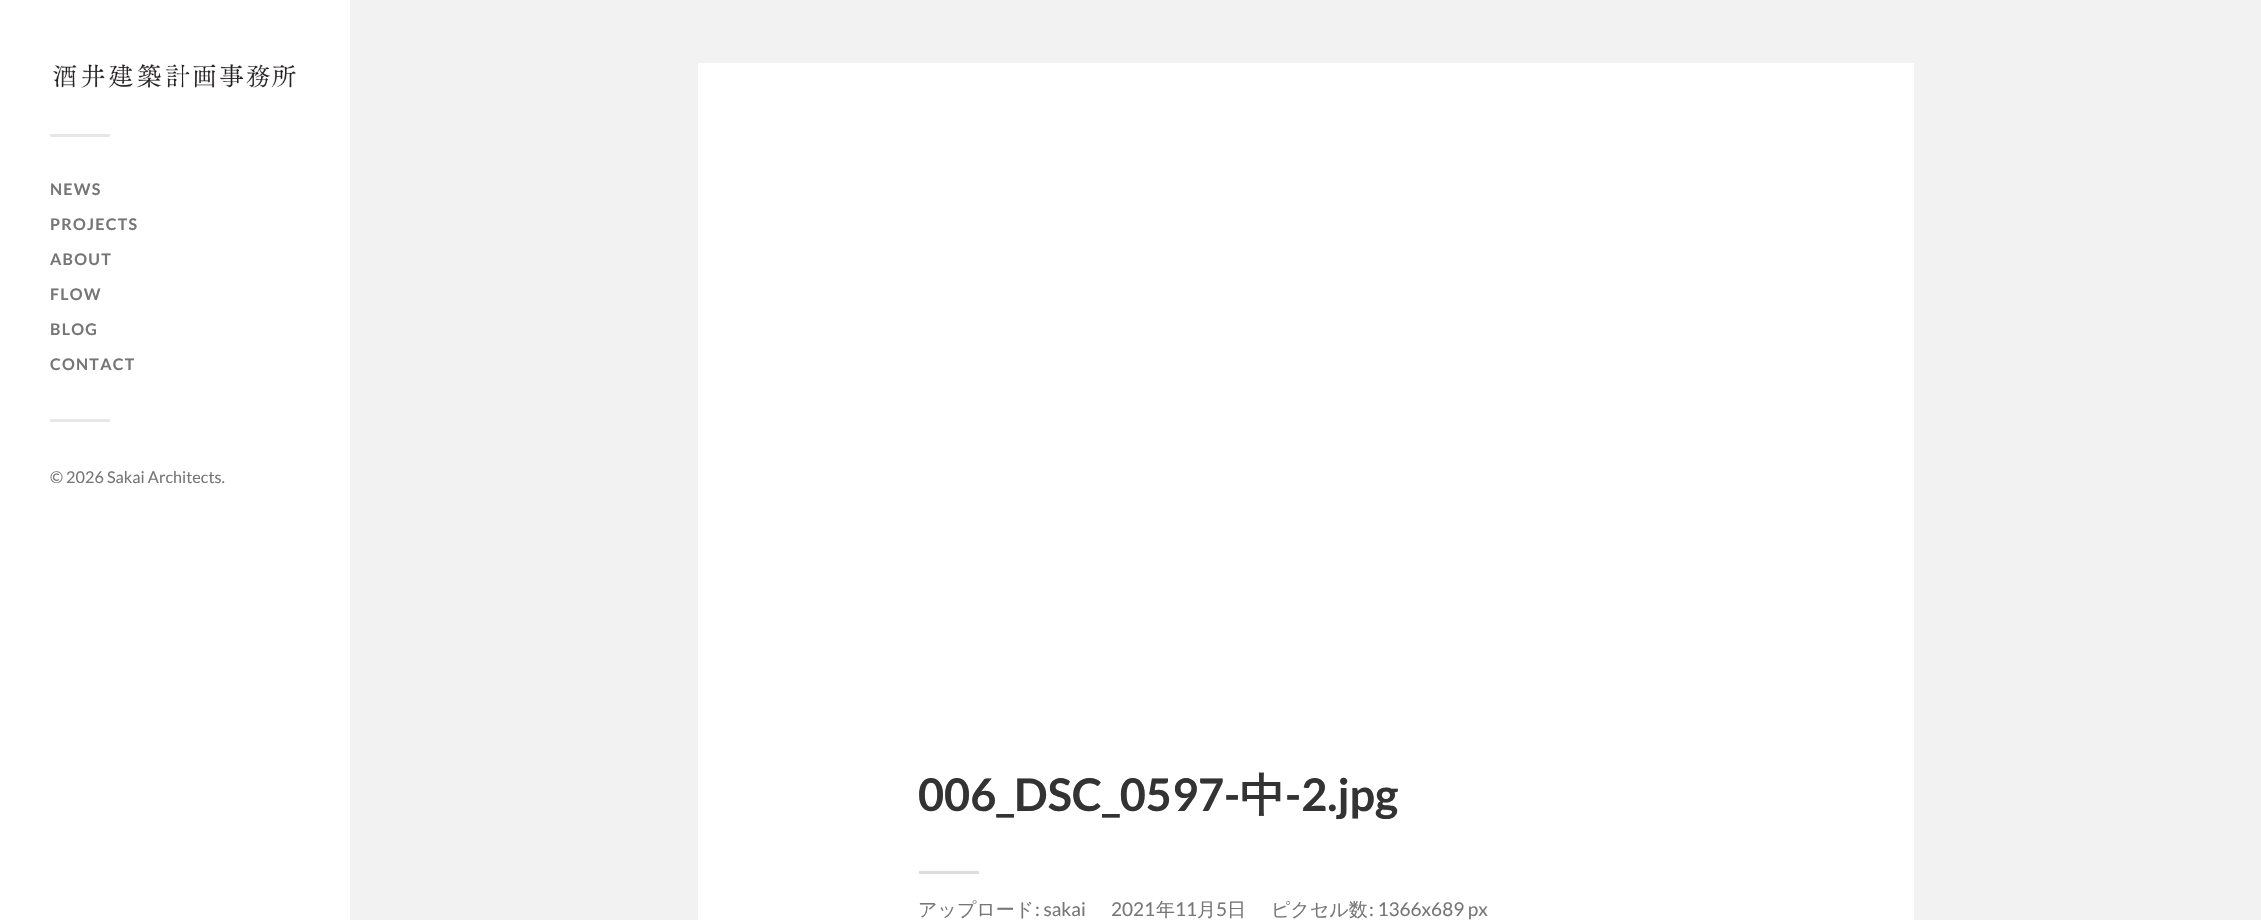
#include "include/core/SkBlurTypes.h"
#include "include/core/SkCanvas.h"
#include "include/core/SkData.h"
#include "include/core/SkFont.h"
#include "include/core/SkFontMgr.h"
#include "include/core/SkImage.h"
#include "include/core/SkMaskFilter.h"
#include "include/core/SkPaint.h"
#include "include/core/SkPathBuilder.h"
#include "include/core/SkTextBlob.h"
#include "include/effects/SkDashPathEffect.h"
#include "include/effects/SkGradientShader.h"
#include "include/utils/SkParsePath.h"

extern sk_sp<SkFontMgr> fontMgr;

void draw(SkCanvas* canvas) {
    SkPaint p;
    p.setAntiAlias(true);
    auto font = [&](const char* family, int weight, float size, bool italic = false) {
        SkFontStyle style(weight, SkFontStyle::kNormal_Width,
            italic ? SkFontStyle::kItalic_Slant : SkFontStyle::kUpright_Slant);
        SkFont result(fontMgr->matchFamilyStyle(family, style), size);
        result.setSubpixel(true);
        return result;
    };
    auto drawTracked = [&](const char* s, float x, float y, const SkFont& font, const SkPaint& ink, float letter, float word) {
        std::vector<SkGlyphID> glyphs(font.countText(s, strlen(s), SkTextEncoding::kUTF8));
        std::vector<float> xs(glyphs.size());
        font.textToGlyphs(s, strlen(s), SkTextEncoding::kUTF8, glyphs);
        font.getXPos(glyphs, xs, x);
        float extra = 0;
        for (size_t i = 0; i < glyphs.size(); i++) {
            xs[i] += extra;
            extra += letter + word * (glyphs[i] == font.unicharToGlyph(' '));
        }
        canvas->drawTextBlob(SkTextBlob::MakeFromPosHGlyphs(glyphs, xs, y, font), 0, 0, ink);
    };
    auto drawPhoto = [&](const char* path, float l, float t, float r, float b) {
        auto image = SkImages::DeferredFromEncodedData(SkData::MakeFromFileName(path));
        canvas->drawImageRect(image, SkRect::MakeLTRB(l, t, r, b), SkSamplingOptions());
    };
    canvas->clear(0xFFF2F2F2);
    p.setColor(0xFFFFFFFF);
    canvas->drawRect(SkRect::MakeLTRB(0, 0, 350, 920), p);
    drawPhoto("media/1.png", 52, 64, 296, 88);
    p.setColor(0xFFE7E7E7);
    canvas->drawRect(SkRect::MakeLTRB(50, 134, 110, 137), p);
    auto font1 = font("Lato", 700, 16);
    p.setColor(0xFF767676);
    {
        const struct { const char* s; float x, y; } items[] = {
            {"NEWS", 50, 195},
            {"PROJECTS", 50, 230},
            {"ABOUT", 50, 265},
            {"FLOW", 50, 300},
            {"BLOG", 50, 335},
            {"CONTACT", 50, 370},
        };
        for (auto [s, x, y] : items) {
            drawTracked(s, x, y, font1, p, 1.25f, 0);
        }
    }
    p.setColor(0xFFE7E7E7);
    canvas->drawRect(SkRect::MakeLTRB(50, 419, 110, 422), p);
    auto font2 = font("Lato", 400, 16.25f);
    p.setColor(0xFF767676);
    canvas->drawString("© 2026 Sakai Architects.", 50, 483, font2, p);
    p.setColor(0xFFFFFFFF);
    canvas->drawRect(SkRect::MakeLTRB(698, 63, 1914, 920), p);
    auto font3 = font("Lato", 700, 45);
    p.setColor(0xFF333333);
    canvas->drawString("006_DSC_0597-", 918, 811, font3, p);
    auto font4 = font("WenQuanYi Zen Hei", 700, 45);
    canvas->drawString("中", 1240, 811, font4, p);
    canvas->drawString("-2.jpg", 1285, 811, font3, p);
    p.setColor(0xFFDDDDDD);
    canvas->drawRect(SkRect::MakeLTRB(919, 871, 979, 874), p);
    auto font5 = font("WenQuanYi Zen Hei", 500, 19);
    p.setColor(0xFF767676);
    canvas->drawString("アップロード", 918, 916, font5, p);
    auto font6 = font("Lato", 400, 19);
    canvas->drawString(": sakai", 1035, 916, font6, p);
    canvas->drawString("2021", 1111, 916, font6, p);
    canvas->drawString("年", 1156, 916, font5, p);
    canvas->drawString("11", 1175, 916, font6, p);
    canvas->drawString("月", 1197, 916, font5, p);
    canvas->drawString("5", 1216, 916, font6, p);
    canvas->drawString("日", 1227, 916, font5, p);
    canvas->drawString("ピクセル数", 1271, 916, font5, p);
    canvas->drawString(": 1366x689 px", 1369, 916, font6, p);
}
